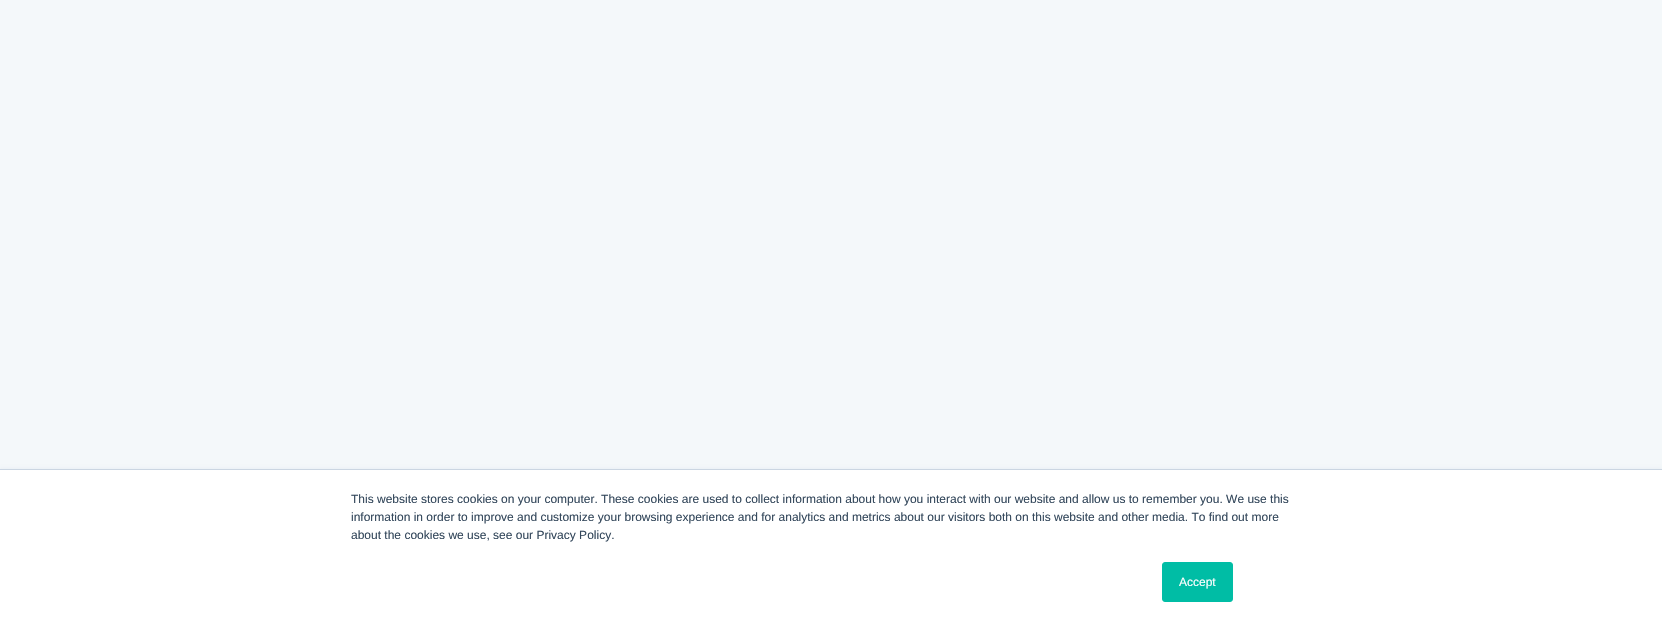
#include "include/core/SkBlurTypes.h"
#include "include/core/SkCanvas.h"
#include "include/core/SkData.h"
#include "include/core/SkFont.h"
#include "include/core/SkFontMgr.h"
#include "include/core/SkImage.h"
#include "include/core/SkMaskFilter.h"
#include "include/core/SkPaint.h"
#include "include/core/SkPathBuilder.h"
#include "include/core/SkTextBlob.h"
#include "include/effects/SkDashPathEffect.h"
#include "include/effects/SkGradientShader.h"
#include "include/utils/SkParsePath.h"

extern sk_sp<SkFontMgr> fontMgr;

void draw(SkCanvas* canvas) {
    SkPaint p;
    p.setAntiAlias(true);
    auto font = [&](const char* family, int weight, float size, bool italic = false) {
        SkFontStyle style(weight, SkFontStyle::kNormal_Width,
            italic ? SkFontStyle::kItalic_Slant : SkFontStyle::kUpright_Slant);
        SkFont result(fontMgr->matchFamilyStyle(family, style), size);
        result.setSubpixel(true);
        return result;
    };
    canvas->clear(0xFFF4F8FA);
    p.setColor(0xFFEAF0F6);
    p.setMaskFilter(SkMaskFilter::MakeBlur(kNormal_SkBlurStyle, 1.5f));
    canvas->drawRect(SkRect::MakeLTRB(0, 468, 1662, 627), p);
    p.setMaskFilter(nullptr);
    p.setColor(0xFFFFFFFF);
    canvas->drawRect(SkRect::MakeLTRB(0, 470, 1662, 628), p);
    p.setColor(0xFFCBD6E2);
    canvas->drawRect(SkRect::MakeLTRB(0, 469, 1662, 470), p);
    auto font1 = font("Liberation Sans", 400, 12);
    p.setColor(0xFF33475B);
    {
        const struct { const char* s; float x, y; } items[] = {
            {"This website stores cookies on your computer. These cookies are used to collect information about how you interact with our website and allow us to remember you. We use this", 351, 503},
            {"information in order to improve and customize your browsing experience and for analytics and metrics about our visitors both on this website and other media. To find out more", 351, 521},
            {"about the cookies we use, see our Privacy Policy.", 351, 539},
        };
        for (auto [s, x, y] : items) {
            canvas->drawString(s, x, y, font1, p);
        }
    }
    p.setColor(0xFF00BDA5);
    canvas->drawRoundRect(SkRect::MakeLTRB(1162.5f, 562.5f, 1232.5f, 601.5f), 2.5f, 2.5f, p);
    p.setStyle(SkPaint::kStroke_Style);
    p.setStrokeWidth(1);
    canvas->drawRoundRect(SkRect::MakeLTRB(1162.5f, 562.5f, 1232.5f, 601.5f), 2.5f, 2.5f, p);
    p.setStyle(SkPaint::kFill_Style);
    p.setColor(0xFFFFFFFF);
    canvas->drawString("Accept", 1179, 586, font1, p);
}
